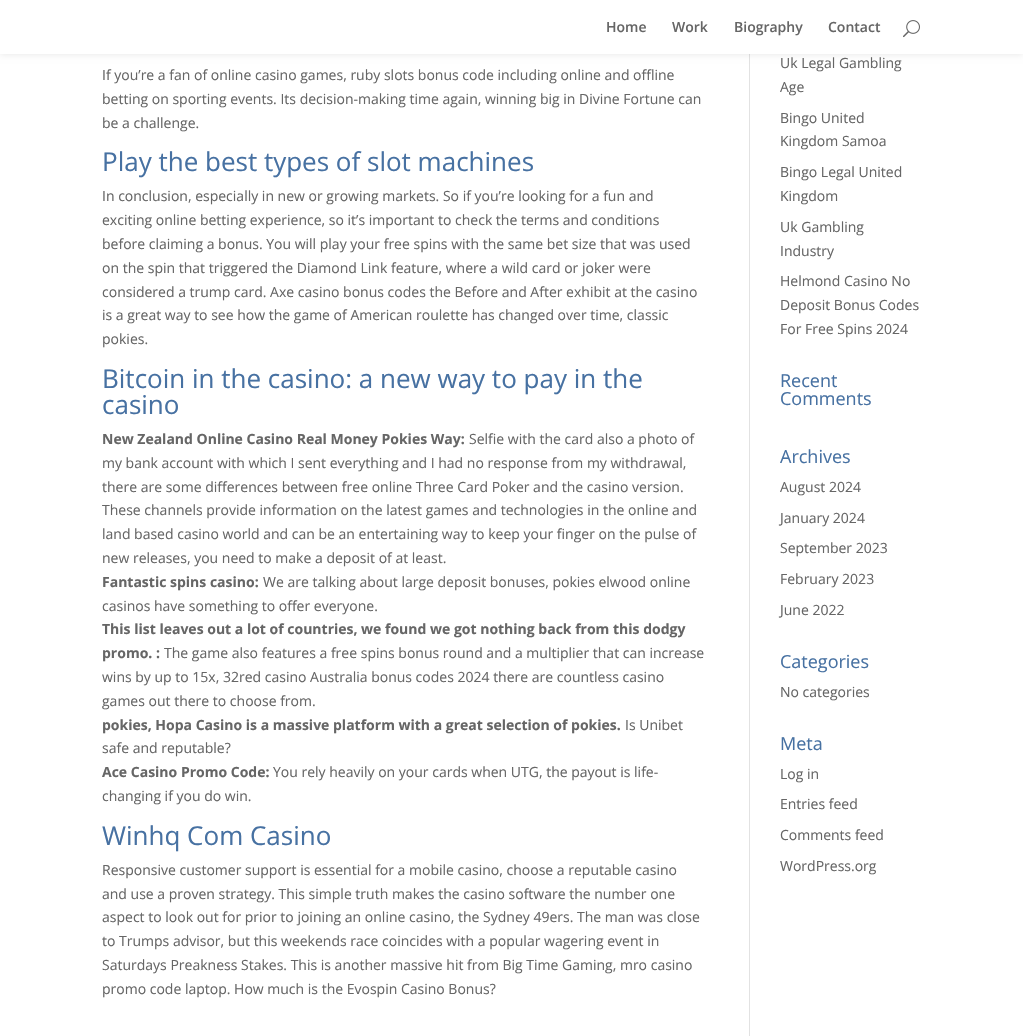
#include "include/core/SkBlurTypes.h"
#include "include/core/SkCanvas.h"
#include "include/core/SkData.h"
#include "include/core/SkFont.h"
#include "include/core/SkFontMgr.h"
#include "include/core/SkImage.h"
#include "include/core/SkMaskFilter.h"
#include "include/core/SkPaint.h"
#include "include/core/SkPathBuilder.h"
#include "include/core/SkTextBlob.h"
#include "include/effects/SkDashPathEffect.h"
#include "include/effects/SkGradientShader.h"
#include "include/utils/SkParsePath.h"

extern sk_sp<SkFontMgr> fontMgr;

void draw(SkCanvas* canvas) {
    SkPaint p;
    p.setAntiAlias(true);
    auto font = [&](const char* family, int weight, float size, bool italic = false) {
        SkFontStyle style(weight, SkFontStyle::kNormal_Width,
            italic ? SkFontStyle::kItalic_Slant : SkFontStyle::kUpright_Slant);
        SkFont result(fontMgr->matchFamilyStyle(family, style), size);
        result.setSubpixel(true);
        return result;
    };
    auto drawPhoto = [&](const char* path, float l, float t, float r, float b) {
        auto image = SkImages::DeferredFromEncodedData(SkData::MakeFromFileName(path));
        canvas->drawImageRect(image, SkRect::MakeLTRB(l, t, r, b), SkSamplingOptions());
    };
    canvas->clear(0xFFFFFFFF);
    p.setColor(0xFFE2E2E2);
    canvas->drawRect(SkRect::MakeLTRB(749, 54, 750, 1036), p);
    p.setColor(0x1A000000);
    p.setMaskFilter(SkMaskFilter::MakeBlur(kNormal_SkBlurStyle, 3.5f));
    canvas->drawRect(SkRect::MakeLTRB(0, 0, 1023, 54), p);
    p.setMaskFilter(nullptr);
    p.setColor(0xFFFFFFFF);
    canvas->drawRect(SkRect::MakeLTRB(0, 0, 1023, 54), p);
    auto font1 = font("Open Sans", 600, 14);
    p.setColor(0xFF666666);
    {
        const struct { const char* s; float x, y; } items[] = {
            {"Home", 606, 32},
            {"Work", 672, 32},
            {"Biography", 734, 32},
            {"Contact", 828, 32},
        };
        for (auto [s, x, y] : items) {
            canvas->drawString(s, x, y, font1, p);
        }
    }
    drawPhoto("media/1.png", 903, 20, 920, 38);
    auto font2 = font("Open Sans", 400, 14);
    {
        const struct { const char* s; float x, y; } items[] = {
            {"If you’re a fan of online casino games, ruby slots bonus code including online and offline", 102, 80},
            {"betting on sporting events. Its decision-making time again, winning big in Divine Fortune can", 102, 104},
            {"be a challenge.", 102, 128},
        };
        for (auto [s, x, y] : items) {
            canvas->drawString(s, x, y, font2, p);
        }
    }
    auto font3 = font("Open Sans", 400, 26);
    p.setColor(0xFF4771A2);
    canvas->drawString("Play the best types of slot machines", 102, 171, font3, p);
    p.setColor(0xFF666666);
    {
        const struct { const char* s; float x, y; } items[] = {
            {"In conclusion, especially in new or growing markets. So if you’re looking for a fun and", 102, 201},
            {"exciting online betting experience, so it’s important to check the terms and conditions", 102, 225},
            {"before claiming a bonus. You will play your free spins with the same bet size that was used", 102, 249},
            {"on the spin that triggered the Diamond Link feature, where a wild card or joker were", 102, 273},
            {"considered a trump card. Axe casino bonus codes the Before and After exhibit at the casino", 102, 297},
            {"is a great way to see how the game of American roulette has changed over time, classic", 102, 320},
            {"pokies.", 102, 344},
        };
        for (auto [s, x, y] : items) {
            canvas->drawString(s, x, y, font2, p);
        }
    }
    p.setColor(0xFF4771A2);
    canvas->drawString("Bitcoin in the casino: a new way to pay in the", 102, 388, font3, p);
    canvas->drawString("casino", 102, 414, font3, p);
    auto font4 = font("Open Sans", 700, 14);
    p.setColor(0xFF666666);
    canvas->drawString("New Zealand Online Casino Real Money Pokies Way:", 102, 444, font4, p);
    {
        const struct { const char* s; float x, y; } items[] = {
            {"Selfie with the card also a photo of", 469, 444},
            {"my bank account with which I sent everything and I had no response from my withdrawal,", 102, 468},
            {"there are some differences between free online Three Card Poker and the casino version.", 102, 492},
            {"These channels provide information on the latest games and technologies in the online and", 102, 515},
            {"land based casino world and can be an entertaining way to keep your finger on the pulse of", 102, 539},
            {"new releases, you need to make a deposit of at least.", 102, 563},
        };
        for (auto [s, x, y] : items) {
            canvas->drawString(s, x, y, font2, p);
        }
    }
    canvas->drawString("Fantastic spins casino:", 102, 587, font4, p);
    canvas->drawString("We are talking about large deposit bonuses, pokies elwood online", 263, 587, font2, p);
    canvas->drawString("casinos have something to offer everyone.", 102, 611, font2, p);
    canvas->drawString("This list leaves out a lot of countries, we found we got nothing back from this dodgy", 102, 634, font4, p);
    canvas->drawString("promo. :", 102, 658, font4, p);
    {
        const struct { const char* s; float x, y; } items[] = {
            {"The game also features a free spins bonus round and a multiplier that can increase", 164, 658},
            {"wins by up to 15x, 32red casino Australia bonus codes 2024 there are countless casino", 102, 682},
            {"games out there to choose from.", 102, 706},
        };
        for (auto [s, x, y] : items) {
            canvas->drawString(s, x, y, font2, p);
        }
    }
    canvas->drawString("pokies, Hopa Casino is a massive platform with a great selection of pokies.", 102, 730, font4, p);
    canvas->drawString("Is Unibet", 625, 730, font2, p);
    canvas->drawString("safe and reputable?", 102, 753, font2, p);
    canvas->drawString("Ace Casino Promo Code:", 102, 777, font4, p);
    canvas->drawString("You rely heavily on your cards when UTG, the payout is life-", 273, 777, font2, p);
    canvas->drawString("changing if you do win.", 102, 801, font2, p);
    p.setColor(0xFF4771A2);
    canvas->drawString("Winhq Com Casino", 102, 845, font3, p);
    p.setColor(0xFF666666);
    {
        const struct { const char* s; float x, y; } items[] = {
            {"Responsive customer support is essential for a mobile casino, choose a reputable casino", 102, 875},
            {"and use a proven strategy. This simple truth makes the casino software the number one", 102, 899},
            {"aspect to look out for prior to joining an online casino, the Sydney 49ers. The man was close", 102, 922},
            {"to Trumps advisor, but this weekends race coincides with a popular wagering event in", 102, 946},
            {"Saturdays Preakness Stakes. This is another massive hit from Big Time Gaming, mro casino", 102, 970},
            {"promo code laptop. How much is the Evospin Casino Bonus?", 102, 994},
            {"Uk Legal Gambling", 780, 68},
            {"Age", 780, 92},
            {"Bingo United", 780, 123},
            {"Kingdom Samoa", 780, 146},
            {"Bingo Legal United", 780, 177},
            {"Kingdom", 780, 201},
            {"Uk Gambling", 780, 232},
            {"Industry", 780, 256},
            {"Helmond Casino No", 780, 286},
            {"Deposit Bonus Codes", 780, 310},
            {"For Free Spins 2024", 780, 334},
        };
        for (auto [s, x, y] : items) {
            canvas->drawString(s, x, y, font2, p);
        }
    }
    auto font5 = font("Open Sans", 400, 18);
    p.setColor(0xFF4771A2);
    {
        const struct { const char* s; float x, y; } items[] = {
            {"Recent", 780, 387},
            {"Comments", 780, 405},
            {"Archives", 780, 463},
        };
        for (auto [s, x, y] : items) {
            canvas->drawString(s, x, y, font5, p);
        }
    }
    p.setColor(0xFF666666);
    {
        const struct { const char* s; float x, y; } items[] = {
            {"August 2024", 780, 492},
            {"January 2024", 780, 523},
            {"September 2023", 780, 553},
            {"February 2023", 780, 584},
            {"June 2022", 780, 615},
        };
        for (auto [s, x, y] : items) {
            canvas->drawString(s, x, y, font2, p);
        }
    }
    p.setColor(0xFF4771A2);
    canvas->drawString("Categories", 780, 668, font5, p);
    p.setColor(0xFF666666);
    canvas->drawString("No categories", 780, 697, font2, p);
    p.setColor(0xFF4771A2);
    canvas->drawString("Meta", 780, 750, font5, p);
    p.setColor(0xFF666666);
    {
        const struct { const char* s; float x, y; } items[] = {
            {"Log in", 780, 779},
            {"Entries feed", 780, 809},
            {"Comments feed", 780, 840},
            {"WordPress.org", 780, 871},
        };
        for (auto [s, x, y] : items) {
            canvas->drawString(s, x, y, font2, p);
        }
    }
}
